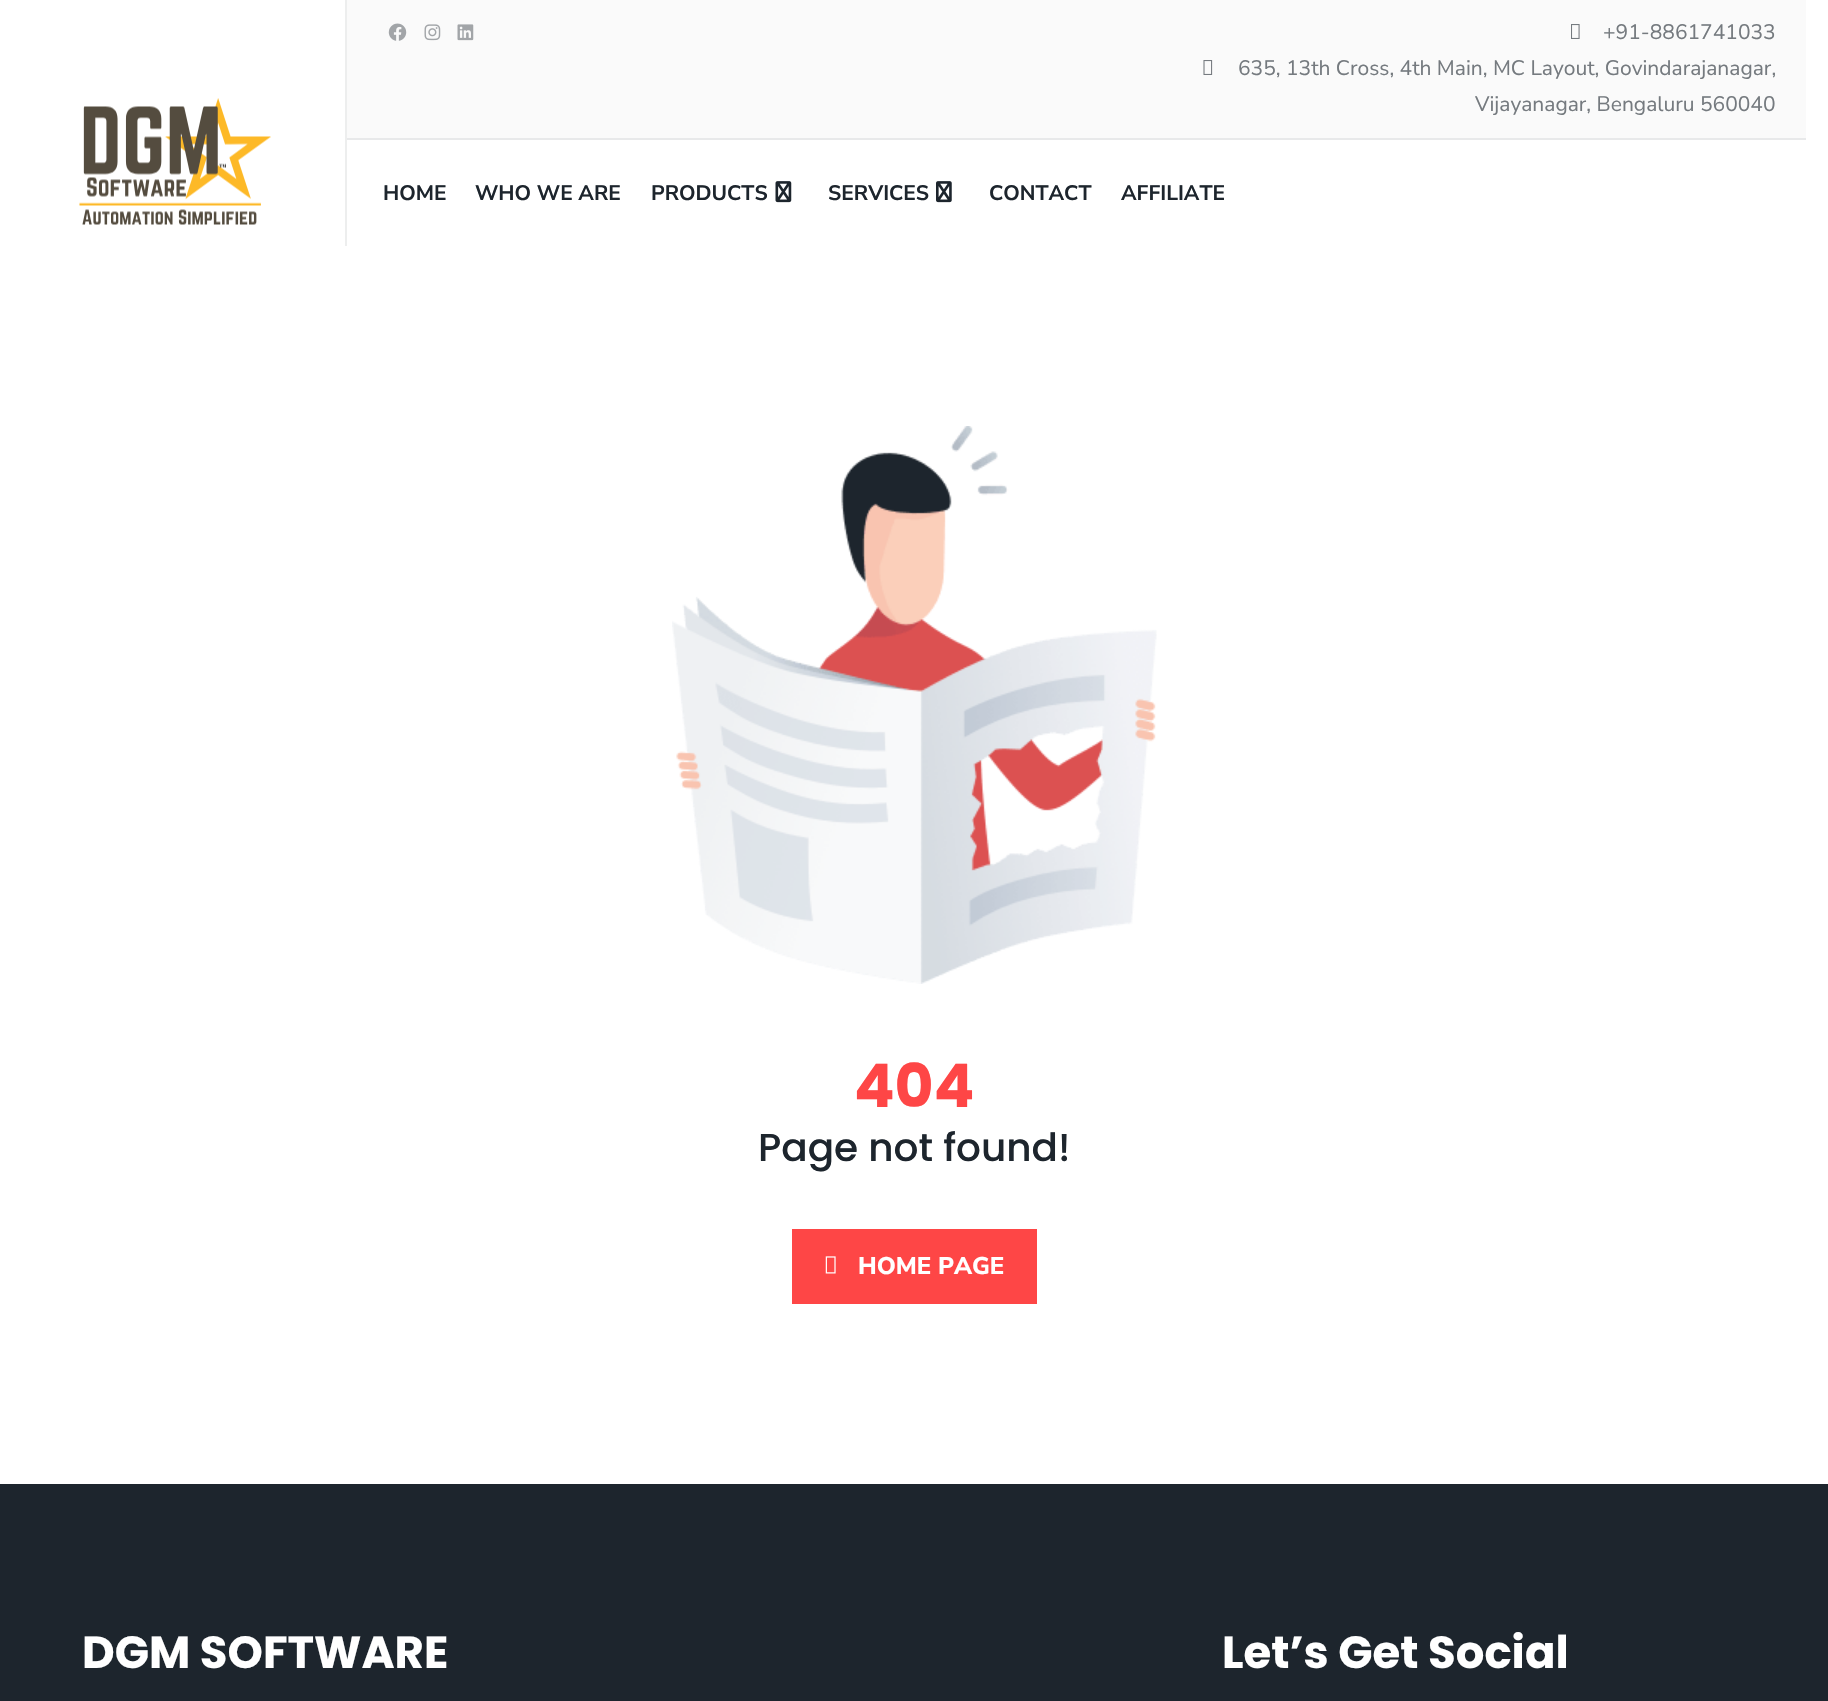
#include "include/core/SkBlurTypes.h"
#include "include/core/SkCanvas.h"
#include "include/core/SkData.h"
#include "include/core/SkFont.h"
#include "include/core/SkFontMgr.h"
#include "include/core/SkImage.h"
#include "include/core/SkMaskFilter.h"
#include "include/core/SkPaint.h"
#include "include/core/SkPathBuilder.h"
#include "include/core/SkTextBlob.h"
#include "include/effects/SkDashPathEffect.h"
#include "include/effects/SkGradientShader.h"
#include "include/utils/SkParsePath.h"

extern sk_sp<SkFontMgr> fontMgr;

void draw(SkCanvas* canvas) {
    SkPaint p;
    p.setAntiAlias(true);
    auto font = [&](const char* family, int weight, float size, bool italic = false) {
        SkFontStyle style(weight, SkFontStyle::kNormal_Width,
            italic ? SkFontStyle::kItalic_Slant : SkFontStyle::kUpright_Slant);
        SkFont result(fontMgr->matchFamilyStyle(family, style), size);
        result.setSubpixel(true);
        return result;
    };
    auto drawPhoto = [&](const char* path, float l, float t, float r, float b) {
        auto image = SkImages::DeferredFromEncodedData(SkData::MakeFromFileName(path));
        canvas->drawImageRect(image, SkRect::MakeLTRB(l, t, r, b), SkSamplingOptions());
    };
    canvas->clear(0xFFFFFFFF);
    drawPhoto("media/1.png", 79, 98, 271, 225);
    {
        const struct { float l, t, r, b; SkColor color; } items[] = {
            {345, 0, 347, 246, 0xFFEDEEEE},
            {347, 0, 1806, 138, 0xFFFAFAFA},
            {347, 138, 1806, 140, 0xFFE8E9EA},
        };
        for (auto [l, t, r, b, color] : items) {
            p.setColor(color);
            canvas->drawRect(SkRect::MakeLTRB(l, t, r, b), p);
        }
    }
    drawPhoto("media/2.png", 388, 23, 407, 41);
    drawPhoto("media/3.png", 424, 24, 441, 41);
    drawPhoto("media/4.png", 457, 24, 474, 41);
    drawPhoto("media/5.png", 1571, 24, 1580, 39);
    auto font1 = font("Nunito Sans", 400, 21);
    p.setColor(0xFF757A7F);
    canvas->drawString("+91-8861741033", 1603, 39, font1, p);
    drawPhoto("media/6.png", 1203, 60, 1213, 75);
    canvas->drawString("635, 13th Cross, 4th Main, MC Layout, Govindarajanagar,", 1238, 75, font1, p);
    canvas->drawString("Vijayanagar, Bengaluru 560040", 1475, 111, font1, p);
    auto font2 = font("Nunito Sans", 700, 21);
    p.setColor(0xFF1D252D);
    {
        const struct { const char* s; float x, y; } items[] = {
            {"HOME", 383, 200},
            {"WHO WE ARE", 475, 200},
            {"PRODUCTS", 651, 200},
        };
        for (auto [s, x, y] : items) {
            canvas->drawString(s, x, y, font2, p);
        }
    }
    drawPhoto("media/7.png", 775, 181, 792, 203);
    canvas->drawString("SERVICES", 828, 200, font2, p);
    drawPhoto("media/8.png", 936, 181, 952, 203);
    canvas->drawString("CONTACT", 989, 200, font2, p);
    canvas->drawString("AFFILIATE", 1121, 200, font2, p);
    drawPhoto("media/9.png", 672, 426, 1157, 984);
    auto font3 = font("Poppins", 700, 60);
    p.setColor(0xFFFE4646);
    canvas->drawString("404", 854, 1107, font3, p);
    auto font4 = font("Poppins", 500, 39);
    p.setColor(0xFF1D252D);
    canvas->drawString("Page not found!", 758, 1161, font4, p);
    p.setColor(0xFFFE4646);
    canvas->drawRect(SkRect::MakeLTRB(792, 1229, 1037, 1304), p);
    drawPhoto("media/10.png", 825, 1256, 836, 1274);
    auto font5 = font("Nunito Sans", 800, 24);
    p.setColor(0xFFFFFFFF);
    canvas->drawString("HOME PAGE", 858, 1274, font5, p);
    p.setColor(0xFF1D252D);
    canvas->drawRect(SkRect::MakeLTRB(0, 1484, 1828, 1701), p);
    auto font6 = font("Poppins", 700, 45);
    p.setColor(0xFFFFFFFF);
    canvas->drawString("DGM SOFTWARE", 82, 1668, font6, p);
    canvas->drawString("Let’s Get Social", 1222, 1668, font6, p);
}
